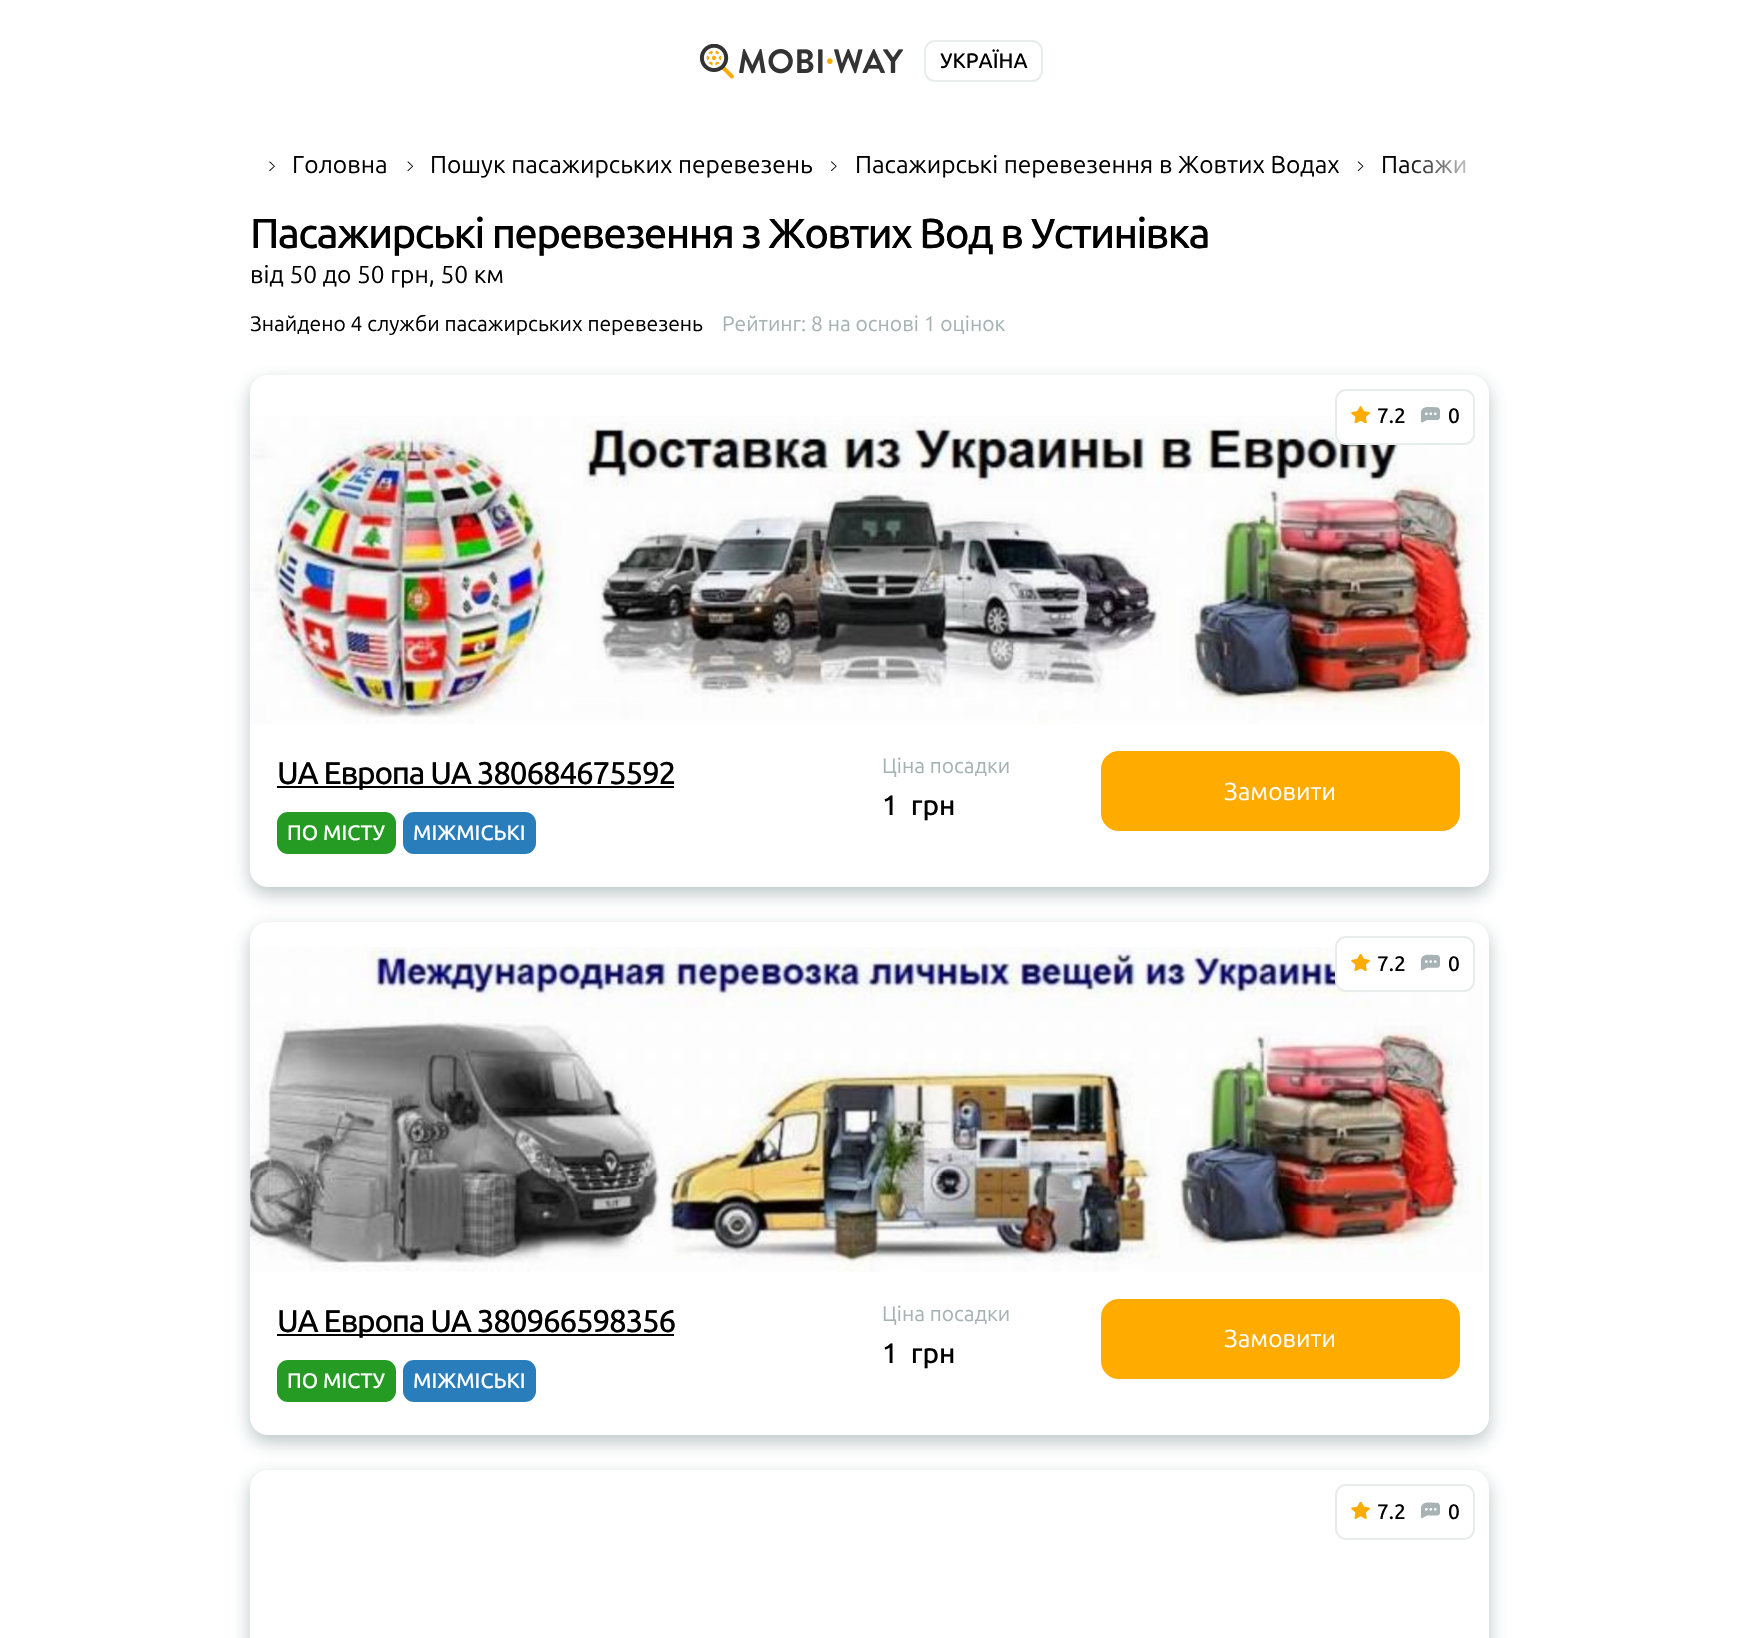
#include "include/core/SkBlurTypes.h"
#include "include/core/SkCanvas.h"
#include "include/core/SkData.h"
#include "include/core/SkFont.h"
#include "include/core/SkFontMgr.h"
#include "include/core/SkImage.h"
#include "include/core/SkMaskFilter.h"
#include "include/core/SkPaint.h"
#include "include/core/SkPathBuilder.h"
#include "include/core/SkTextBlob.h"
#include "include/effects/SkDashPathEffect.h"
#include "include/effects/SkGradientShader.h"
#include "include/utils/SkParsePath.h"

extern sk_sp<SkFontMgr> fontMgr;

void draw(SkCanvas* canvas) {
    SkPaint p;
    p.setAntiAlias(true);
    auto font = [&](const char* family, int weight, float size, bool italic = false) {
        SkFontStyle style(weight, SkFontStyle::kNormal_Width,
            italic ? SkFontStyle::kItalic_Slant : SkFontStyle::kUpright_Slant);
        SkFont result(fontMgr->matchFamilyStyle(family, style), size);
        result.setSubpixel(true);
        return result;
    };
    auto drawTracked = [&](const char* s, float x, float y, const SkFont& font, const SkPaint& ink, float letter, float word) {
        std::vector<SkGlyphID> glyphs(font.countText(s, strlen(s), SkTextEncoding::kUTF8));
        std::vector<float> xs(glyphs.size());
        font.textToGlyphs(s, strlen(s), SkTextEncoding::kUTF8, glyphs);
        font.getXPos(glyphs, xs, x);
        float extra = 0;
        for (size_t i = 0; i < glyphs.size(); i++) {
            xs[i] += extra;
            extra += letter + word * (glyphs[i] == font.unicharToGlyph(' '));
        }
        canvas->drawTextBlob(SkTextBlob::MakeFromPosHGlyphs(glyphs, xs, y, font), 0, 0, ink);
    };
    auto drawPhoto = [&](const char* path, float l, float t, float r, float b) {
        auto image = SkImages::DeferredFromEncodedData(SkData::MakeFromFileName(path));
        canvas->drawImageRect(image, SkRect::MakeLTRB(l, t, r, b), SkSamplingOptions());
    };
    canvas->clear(0xFFFFFFFF);
    drawPhoto("media/1.png", 699, 44, 904, 79);
    p.setStyle(SkPaint::kStroke_Style);
    p.setStrokeWidth(2);
    p.setColor(0xFFE9ECEC);
    canvas->drawRoundRect(SkRect::MakeLTRB(925, 41, 1042, 81), 10, 10, p);
    auto font1 = font("Ubuntu", 500, 21);
    p.setStyle(SkPaint::kFill_Style);
    p.setColor(0xFF000000);
    canvas->drawString("УКРАЇНА", 940, 68, font1, p);
    drawPhoto("media/2.png", 269, 161, 275, 171);
    auto font2 = font("Ubuntu", 400, 24.5f);
    canvas->drawString("Головна", 292, 173, font2, p);
    drawPhoto("media/3.png", 407, 161, 414, 171);
    canvas->drawString("Пошук пасажирських перевезень", 430, 173, font2, p);
    drawPhoto("media/4.png", 831, 161, 837, 171);
    canvas->drawString("Пасажирські перевезення в Жовтих Водах", 855, 173, font2, p);
    drawPhoto("media/5.png", 1357, 161, 1364, 171);
    canvas->drawString("Пасажи", 1381, 173, font2, p);
    {
        const SkColor colors[] = {0xFFFFFFFF, 0x00FFFFFF};
        const float stops[] = {0, 1};
        const SkPoint ends[] = {{1489, 169}, {1402, 169}};
        p.setShader(SkGradientShader::MakeLinear(ends, colors, stops, 2, SkTileMode::kClamp));
        p.setAlpha(255);
    }
    canvas->drawRect(SkRect::MakeLTRB(1404, 160, 1466, 174), p);
    auto font3 = font("Ubuntu", 500, 42);
    p.setShader(nullptr);
    p.setColor(0xFF000000);
    drawTracked("Пасажирські перевезення з Жовтих Вод в Устинівка", 250, 248, font3, p, -1.7f, 0);
    canvas->drawString("від 50 до 50 грн, 50 км", 250, 283, font2, p);
    auto font4 = font("Ubuntu", 400, 21);
    canvas->drawString("Знайдено 4 служби пасажирських перевезень", 250, 331, font4, p);
    p.setColor(0xFFA6B2B4);
    canvas->drawString("Рейтинг: 8 на основі 1 оцінок", 722, 331, font4, p);
    p.setColor(0x4D213E44);
    p.setMaskFilter(SkMaskFilter::MakeBlur(kNormal_SkBlurStyle, 9));
    canvas->drawRoundRect(SkRect::MakeLTRB(250, 382, 1489, 894), 18, 18, p);
    p.setMaskFilter(nullptr);
    p.setColor(0xFFFFFFFF);
    canvas->drawRoundRect(SkRect::MakeLTRB(250, 375, 1489, 887), 18, 18, p);
    drawPhoto("media/8.png", 250, 416, 1484, 724);
    canvas->drawRoundRect(SkRect::MakeLTRB(1336, 390, 1474, 444), 10, 10, p);
    p.setStyle(SkPaint::kStroke_Style);
    p.setColor(0xFFE9ECEC);
    canvas->drawRoundRect(SkRect::MakeLTRB(1336, 390, 1474, 444), 10, 10, p);
    drawPhoto("media/6.png", 1351, 406, 1370, 424);
    p.setStyle(SkPaint::kFill_Style);
    p.setColor(0xFF000000);
    canvas->drawString("7.2", 1377, 423, font1, p);
    drawPhoto("media/7.png", 1421, 407, 1440, 423);
    canvas->drawString("0", 1448, 423, font1, p);
    canvas->drawRect(SkRect::MakeLTRB(277, 786, 674, 788), p);
    auto font5 = font("Ubuntu", 500, 31.5f);
    drawTracked("UА Европа UА 380684675592", 277, 784, font5, p, -1.25f, 0);
    p.setColor(0xFF259B24);
    canvas->drawRoundRect(SkRect::MakeLTRB(277, 812, 396, 854), 11, 11, p);
    p.setColor(0xFFFFFFFF);
    canvas->drawString("ПО МІСТУ", 287, 840, font1, p);
    p.setColor(0xFF2A7DBB);
    canvas->drawRoundRect(SkRect::MakeLTRB(403, 812, 536, 854), 11, 11, p);
    p.setColor(0xFFFFFFFF);
    canvas->drawString("МІЖМІСЬКІ", 413, 840, font1, p);
    p.setColor(0xFFA6B2B4);
    canvas->drawString("Ціна посадки", 882, 773, font4, p);
    auto font6 = font("Ubuntu", 500, 28);
    p.setColor(0xFF000000);
    canvas->drawString("1  грн", 882, 815, font6, p);
    p.setColor(0xFFFFAB00);
    canvas->drawRoundRect(SkRect::MakeLTRB(1102, 752, 1459, 830), 17, 17, p);
    p.setStyle(SkPaint::kStroke_Style);
    canvas->drawRoundRect(SkRect::MakeLTRB(1102, 752, 1459, 830), 17, 17, p);
    p.setStyle(SkPaint::kFill_Style);
    p.setColor(0xFFFFFFFF);
    canvas->drawString("Замовити", 1224, 800, font2, p);
    p.setColor(0x4D213E44);
    p.setMaskFilter(SkMaskFilter::MakeBlur(kNormal_SkBlurStyle, 9));
    canvas->drawRoundRect(SkRect::MakeLTRB(250, 929, 1489, 1442), 18, 18, p);
    p.setMaskFilter(nullptr);
    p.setColor(0xFFFFFFFF);
    canvas->drawRoundRect(SkRect::MakeLTRB(250, 922, 1489, 1435), 18, 18, p);
    drawPhoto("media/9.png", 250, 947, 1482, 1272);
    canvas->drawRoundRect(SkRect::MakeLTRB(1336, 937, 1474, 991), 10, 10, p);
    p.setStyle(SkPaint::kStroke_Style);
    p.setColor(0xFFE9ECEC);
    canvas->drawRoundRect(SkRect::MakeLTRB(1336, 937, 1474, 991), 10, 10, p);
    drawPhoto("media/10.png", 1351, 954, 1370, 971);
    p.setStyle(SkPaint::kFill_Style);
    p.setColor(0xFF000000);
    canvas->drawString("7.2", 1377, 971, font1, p);
    drawPhoto("media/11.png", 1421, 954, 1440, 971);
    canvas->drawString("0", 1448, 971, font1, p);
    canvas->drawRect(SkRect::MakeLTRB(277, 1334, 674, 1336), p);
    drawTracked("UА Европа UА 380966598356", 277, 1332, font5, p, -1.25f, 0);
    p.setColor(0xFF259B24);
    canvas->drawRoundRect(SkRect::MakeLTRB(277, 1360, 396, 1402), 11, 11, p);
    p.setColor(0xFFFFFFFF);
    canvas->drawString("ПО МІСТУ", 287, 1388, font1, p);
    p.setColor(0xFF2A7DBB);
    canvas->drawRoundRect(SkRect::MakeLTRB(403, 1360, 536, 1402), 11, 11, p);
    p.setColor(0xFFFFFFFF);
    canvas->drawString("МІЖМІСЬКІ", 413, 1388, font1, p);
    p.setColor(0xFFA6B2B4);
    canvas->drawString("Ціна посадки", 882, 1321, font4, p);
    p.setColor(0xFF000000);
    canvas->drawString("1  грн", 882, 1363, font6, p);
    p.setColor(0xFFFFAB00);
    canvas->drawRoundRect(SkRect::MakeLTRB(1102, 1300, 1459, 1378), 17, 17, p);
    p.setStyle(SkPaint::kStroke_Style);
    canvas->drawRoundRect(SkRect::MakeLTRB(1102, 1300, 1459, 1378), 17, 17, p);
    p.setStyle(SkPaint::kFill_Style);
    p.setColor(0xFFFFFFFF);
    canvas->drawString("Замовити", 1224, 1347, font2, p);
    p.setColor(0x4D213E44);
    p.setMaskFilter(SkMaskFilter::MakeBlur(kNormal_SkBlurStyle, 9));
    canvas->drawRoundRect(SkRect::MakeLTRB(250, 1477, 1489, 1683), 18, 18, p);
    p.setMaskFilter(nullptr);
    p.setColor(0xFFFFFFFF);
    canvas->drawRoundRect(SkRect::MakeLTRB(250, 1470, 1489, 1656), 18, 18, p);
    p.setStyle(SkPaint::kStroke_Style);
    p.setColor(0xFFE9ECEC);
    canvas->drawRoundRect(SkRect::MakeLTRB(1336, 1485, 1474, 1539), 10, 10, p);
    drawPhoto("media/12.png", 1351, 1502, 1370, 1519);
    p.setStyle(SkPaint::kFill_Style);
    p.setColor(0xFF000000);
    canvas->drawString("7.2", 1377, 1519, font1, p);
    drawPhoto("media/13.png", 1421, 1502, 1440, 1518);
    canvas->drawString("0", 1448, 1519, font1, p);
}
